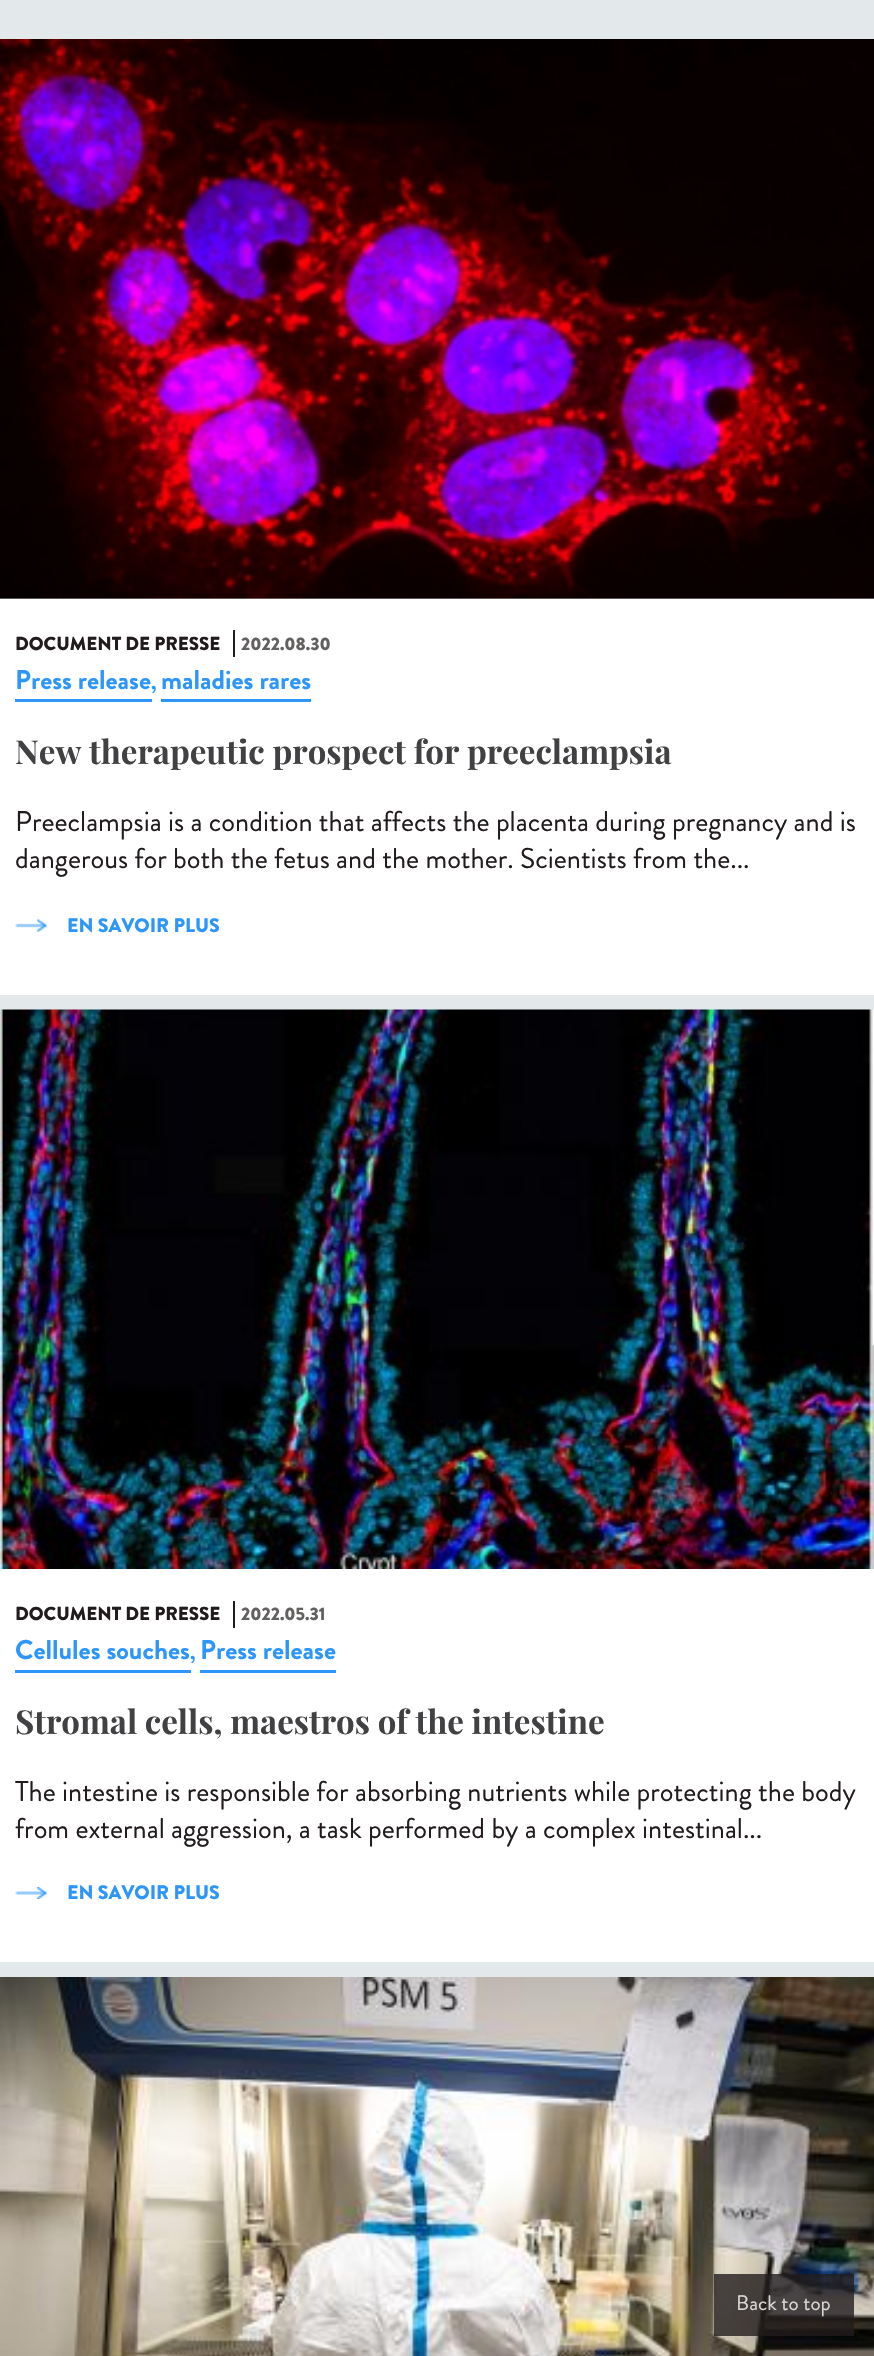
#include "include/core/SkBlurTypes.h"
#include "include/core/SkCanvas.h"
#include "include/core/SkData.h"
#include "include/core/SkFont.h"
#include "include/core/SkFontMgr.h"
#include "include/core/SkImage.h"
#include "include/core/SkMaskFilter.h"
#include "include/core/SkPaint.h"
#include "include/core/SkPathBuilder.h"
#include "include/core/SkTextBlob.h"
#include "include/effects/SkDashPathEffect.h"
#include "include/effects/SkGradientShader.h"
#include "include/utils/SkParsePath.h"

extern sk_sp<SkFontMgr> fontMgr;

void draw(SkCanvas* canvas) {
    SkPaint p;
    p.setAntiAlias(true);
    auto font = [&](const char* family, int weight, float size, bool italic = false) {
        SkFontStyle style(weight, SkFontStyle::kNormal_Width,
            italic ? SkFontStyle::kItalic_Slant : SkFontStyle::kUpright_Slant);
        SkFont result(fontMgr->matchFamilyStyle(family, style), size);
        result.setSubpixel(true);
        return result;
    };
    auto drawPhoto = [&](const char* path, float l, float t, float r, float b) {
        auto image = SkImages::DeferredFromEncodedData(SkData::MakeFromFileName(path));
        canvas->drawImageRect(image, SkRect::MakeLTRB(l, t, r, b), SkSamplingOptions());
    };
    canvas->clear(0xFFE3E9EB);
    p.setColor(0xFFFFFFFF);
    canvas->drawRect(SkRect::MakeLTRB(0, 599, 874, 995), p);
    p.setColor(0xFFA8A8A8);
    canvas->drawRect(SkRect::MakeLTRB(0, 598, 874, 599), p);
    drawPhoto("media/1.png", 0, 39, 874, 599);
    auto font1 = font("Brandon Grotesque", 900, 18.75f);
    p.setColor(0xFF211B1D);
    canvas->drawString("DOCUMENT DE PRESSE", 15, 650, font1, p);
    auto font2 = font("Brandon Grotesque", 900, 18);
    p.setColor(0xFF636060);
    canvas->drawString("2022.08.30", 241, 650, font2, p);
    p.setColor(0xFF211B1D);
    canvas->drawRect(SkRect::MakeLTRB(233, 630, 235, 657), p);
    auto font3 = font("Brandon Grotesque", 700, 27);
    p.setColor(0xFF2D96FA);
    canvas->drawString("Press release", 15, 689, font3, p);
    canvas->drawRect(SkRect::MakeLTRB(15, 699, 152, 702), p);
    auto font4 = font("Brandon Grotesque", 700, 21);
    canvas->drawString(",", 151, 689, font4, p);
    canvas->drawString("maladies rares", 161, 689, font3, p);
    canvas->drawRect(SkRect::MakeLTRB(161, 699, 311, 702), p);
    auto font5 = font("Playfair Display", 700, 33);
    p.setColor(0xFF414144);
    canvas->drawString("New therapeutic prospect for preeclampsia", 15, 764, font5, p);
    auto font6 = font("Brandon Grotesque", 400, 28.5f);
    p.setColor(0xFF211B1D);
    canvas->drawString("Preeclampsia is a condition that affects the placenta during pregnancy and is", 15, 831, font6, p);
    canvas->drawString("dangerous for both the fetus and the mother. Scientists from the...", 15, 868, font6, p);
    drawPhoto("media/2.png", 15, 919, 48, 932);
    auto font7 = font("Brandon Grotesque", 900, 19.5f);
    p.setColor(0xFF2D96FA);
    canvas->drawString("EN SAVOIR PLUS", 67, 932, font7, p);
    p.setColor(0xFFFFFFFF);
    canvas->drawRect(SkRect::MakeLTRB(0, 1569, 874, 1962), p);
    drawPhoto("media/3.png", 0, 1009, 874, 1569);
    p.setColor(0xFF211B1D);
    canvas->drawString("DOCUMENT DE PRESSE", 15, 1620, font1, p);
    p.setColor(0xFF636060);
    canvas->drawString("2022.05.31", 241, 1620, font2, p);
    p.setColor(0xFF211B1D);
    canvas->drawRect(SkRect::MakeLTRB(233, 1601, 235, 1628), p);
    p.setColor(0xFF2D96FA);
    canvas->drawString("Cellules souches", 15, 1659, font3, p);
    canvas->drawRect(SkRect::MakeLTRB(15, 1670, 191, 1673), p);
    canvas->drawString(",", 190, 1659, font4, p);
    canvas->drawString("Press release", 200, 1659, font3, p);
    canvas->drawRect(SkRect::MakeLTRB(200, 1670, 336, 1673), p);
    p.setColor(0xFF414144);
    canvas->drawString("Stromal cells, maestros of the intestine", 15, 1734, font5, p);
    p.setColor(0xFF211B1D);
    canvas->drawString("The intestine is responsible for absorbing nutrients while protecting the body", 15, 1801, font6, p);
    canvas->drawString("from external aggression, a task performed by a complex intestinal...", 15, 1838, font6, p);
    drawPhoto("media/4.png", 15, 1887, 48, 1899);
    p.setColor(0xFF2D96FA);
    canvas->drawString("EN SAVOIR PLUS", 67, 1899, font7, p);
    drawPhoto("media/5.png", 0, 1977, 874, 2356);
    p.setColor(0xCC211B1D);
    canvas->drawRect(SkRect::MakeLTRB(714, 2274, 854, 2336), p);
    auto font8 = font("Brandon Grotesque", 400, 21);
    p.setColor(0xFFD9D8D8);
    canvas->drawString("Back to top", 736, 2310, font8, p);
}
